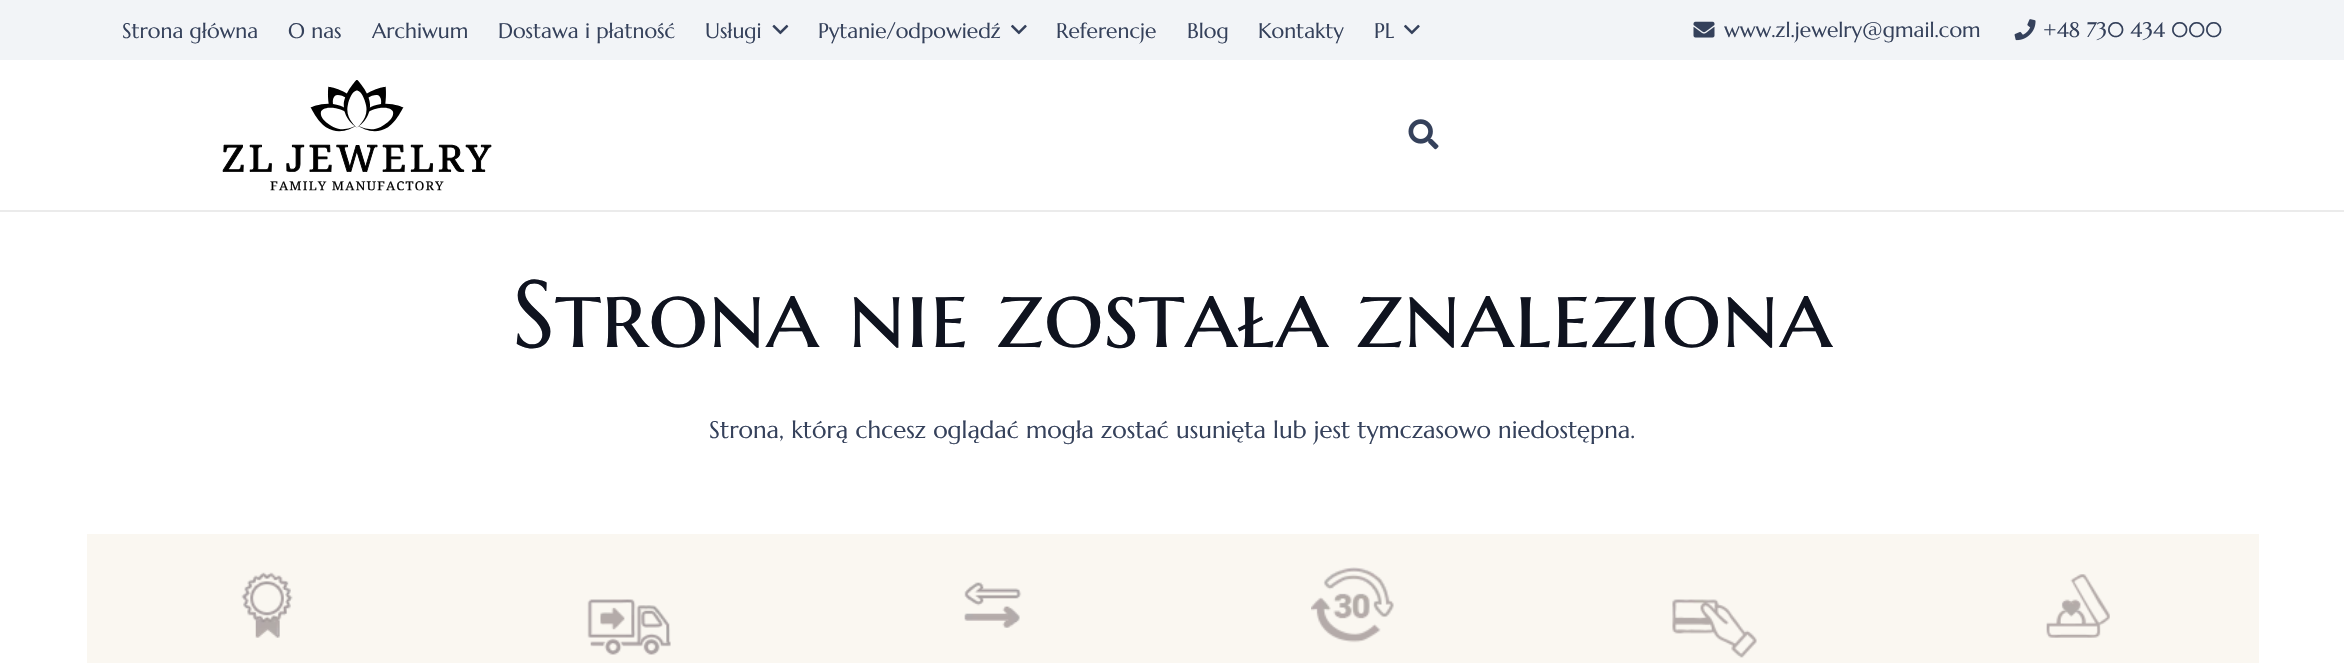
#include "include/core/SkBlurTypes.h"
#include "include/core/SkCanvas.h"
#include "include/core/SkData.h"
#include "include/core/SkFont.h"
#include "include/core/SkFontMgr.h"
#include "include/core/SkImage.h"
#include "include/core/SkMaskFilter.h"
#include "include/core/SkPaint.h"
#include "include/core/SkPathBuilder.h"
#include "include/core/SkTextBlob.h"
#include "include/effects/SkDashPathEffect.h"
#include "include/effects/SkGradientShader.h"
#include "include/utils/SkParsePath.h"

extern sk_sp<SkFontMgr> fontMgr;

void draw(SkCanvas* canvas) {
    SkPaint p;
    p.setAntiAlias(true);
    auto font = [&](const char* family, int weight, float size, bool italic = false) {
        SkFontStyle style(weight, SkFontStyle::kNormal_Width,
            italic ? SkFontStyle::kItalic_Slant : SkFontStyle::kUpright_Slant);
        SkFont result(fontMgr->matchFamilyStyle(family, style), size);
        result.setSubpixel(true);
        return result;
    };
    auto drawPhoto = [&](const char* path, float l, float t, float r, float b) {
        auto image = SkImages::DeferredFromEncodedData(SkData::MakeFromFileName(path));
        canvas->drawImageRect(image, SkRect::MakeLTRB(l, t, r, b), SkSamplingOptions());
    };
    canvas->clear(0xFFFFFFFF);
    p.setColor(0xFFF2F4F7);
    canvas->drawRect(SkRect::MakeLTRB(0, 0, 2344, 60), p);
    auto font1 = font("Marcellus", 400, 21);
    p.setColor(0xFF35415B);
    {
        const struct { const char* s; float x, y; } items[] = {
            {"Strona główna", 122, 38},
            {"O nas", 288, 38},
            {"Archiwum", 372, 38},
            {"Dostawa i płatność", 498, 38},
            {"Usługi", 705, 38},
        };
        for (auto [s, x, y] : items) {
            canvas->drawString(s, x, y, font1, p);
        }
    }
    drawPhoto("media/1.png", 772, 24, 789, 35);
    canvas->drawString("Pytanie/odpowiedź", 818, 38, font1, p);
    drawPhoto("media/2.png", 1011, 24, 1027, 35);
    {
        const struct { const char* s; float x, y; } items[] = {
            {"Referencje", 1056, 38},
            {"Blog", 1187, 38},
            {"Kontakty", 1258, 38},
            {"PL", 1374, 38},
        };
        for (auto [s, x, y] : items) {
            canvas->drawString(s, x, y, font1, p);
        }
    }
    drawPhoto("media/2.png", 1404, 24, 1420, 35);
    drawPhoto("media/3.png", 1693, 21, 1715, 38);
    canvas->drawString("www.zl.jewelry@gmail.com", 1724, 37, font1, p);
    drawPhoto("media/4.png", 2014, 19, 2036, 41);
    canvas->drawString("+48 730 434 000", 2043, 37, font1, p);
    p.setColor(0xFFEBEBEB);
    canvas->drawPath(SkPathBuilder().moveTo(0, 210).lineTo(0, 212).lineTo(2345, 212).lineTo(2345, 62).lineTo(2344, 62).lineTo(2344, 210).close().detach(), p);
    drawPhoto("media/5.png", 222, 80, 492, 191);
    drawPhoto("media/6.png", 1408, 119, 1439, 150);
    auto font2 = font("Marcellus SC", 400, 94.9f);
    p.setColor(0xFF0F131F);
    canvas->drawString("Strona nie została znaleziona", 512, 347, font2, p);
    auto font3 = font("Marcellus", 400, 24);
    p.setColor(0xFF35415B);
    canvas->drawString("Strona, którą chcesz oglądać mogła zostać usunięta lub jest tymczasowo niedostępna.", 709, 438, font3, p);
    p.setColor(0xFFFAF7F1);
    canvas->drawRect(SkRect::MakeLTRB(87, 534, 2259, 663), p);
    drawPhoto("media/7.png", 241, 572, 293, 638);
    drawPhoto("media/8.png", 587, 599, 671, 655);
    drawPhoto("media/9.png", 964, 582, 1022, 628);
    drawPhoto("media/10.png", 1311, 567, 1394, 643);
    drawPhoto("media/11.png", 1672, 599, 1757, 658);
    drawPhoto("media/12.png", 2046, 574, 2110, 638);
}
